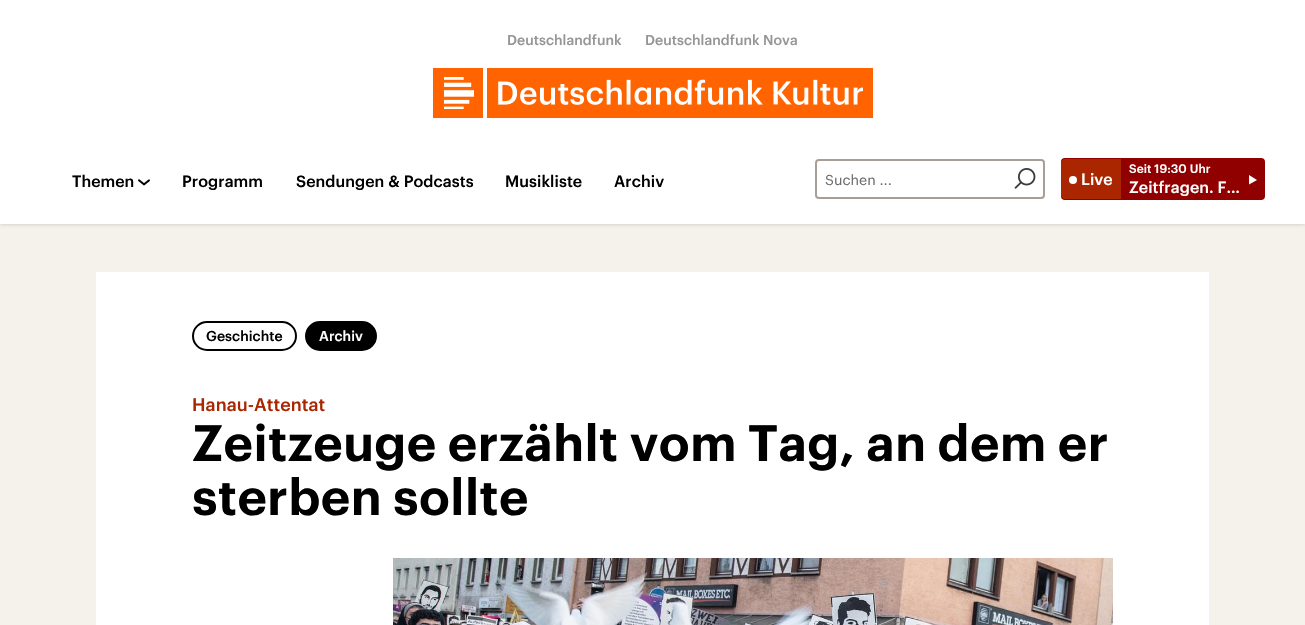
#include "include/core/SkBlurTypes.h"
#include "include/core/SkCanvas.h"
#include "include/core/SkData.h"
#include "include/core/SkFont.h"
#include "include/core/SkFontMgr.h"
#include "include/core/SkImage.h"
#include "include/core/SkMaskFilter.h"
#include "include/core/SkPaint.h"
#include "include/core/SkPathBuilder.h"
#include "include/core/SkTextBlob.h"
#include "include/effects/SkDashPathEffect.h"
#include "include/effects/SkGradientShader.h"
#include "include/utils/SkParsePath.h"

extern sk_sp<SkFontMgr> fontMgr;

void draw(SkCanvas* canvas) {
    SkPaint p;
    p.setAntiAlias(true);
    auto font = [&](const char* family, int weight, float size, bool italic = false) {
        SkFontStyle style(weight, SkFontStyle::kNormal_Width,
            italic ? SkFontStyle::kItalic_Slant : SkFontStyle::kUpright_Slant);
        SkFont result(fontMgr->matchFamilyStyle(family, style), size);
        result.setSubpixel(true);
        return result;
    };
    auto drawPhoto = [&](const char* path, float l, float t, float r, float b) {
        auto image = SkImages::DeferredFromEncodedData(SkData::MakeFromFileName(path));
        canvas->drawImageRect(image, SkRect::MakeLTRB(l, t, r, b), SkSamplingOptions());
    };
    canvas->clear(0xFFF5F1EB);
    p.setColor(0x33000000);
    p.setMaskFilter(SkMaskFilter::MakeBlur(kNormal_SkBlurStyle, 2));
    canvas->drawRect(SkRect::MakeLTRB(0, 0, 1305, 224), p);
    p.setMaskFilter(nullptr);
    p.setColor(0xFFFFFFFF);
    canvas->drawRect(SkRect::MakeLTRB(0, 0, 1305, 224), p);
    auto font1 = font("Graphik", 500, 14);
    p.setColor(0xFF969696);
    canvas->drawString("Deutschlandfunk", 507, 45, font1, p);
    canvas->drawString("Deutschlandfunk Nova", 645, 45, font1, p);
    drawPhoto("media/1.png", 433, 68, 873, 118);
    auto font2 = font("Graphik", 500, 16);
    p.setColor(0xFF000000);
    canvas->drawString("Themen", 72, 187, font2, p);
    drawPhoto("media/2.png", 138, 179, 150, 186);
    {
        const struct { const char* s; float x, y; } items[] = {
            {"Programm", 182, 187},
            {"Sendungen & Podcasts", 296, 187},
            {"Musikliste", 505, 187},
            {"Archiv", 614, 187},
        };
        for (auto [s, x, y] : items) {
            canvas->drawString(s, x, y, font2, p);
        }
    }
    p.setStyle(SkPaint::kStroke_Style);
    p.setStrokeWidth(2);
    p.setColor(0xFFA89E95);
    canvas->drawRoundRect(SkRect::MakeLTRB(816, 160, 1044, 198), 3, 3, p);
    auto font3 = font("Graphik", 400, 14);
    p.setStyle(SkPaint::kFill_Style);
    p.setColor(0xFF6B6B6B);
    canvas->drawString("Suchen ...", 825, 185, font3, p);
    drawPhoto("media/3.png", 1014, 168, 1036, 189);
    p.setColor(0xFF900000);
    canvas->drawRoundRect(SkRect::MakeLTRB(1061, 158, 1265, 200), 4, 4, p);
    p.setColor(0xFFA92600);
    canvas->drawPath(SkPathBuilder().moveTo(1065, 159).lineTo(1121, 159).lineTo(1121, 199).lineTo(1065, 199).cubicTo(1063, 199, 1061, 197, 1061, 195).lineTo(1061, 163).cubicTo(1061, 161, 1063, 159, 1065, 159).close().detach(), p);
    p.setColor(0xFFFFFFFF);
    canvas->drawCircle(1073, 180, 4, p);
    canvas->drawString("Live", 1081, 185, font2, p);
    auto font4 = font("Graphik", 500, 12);
    canvas->drawString("Seit 19:30 Uhr", 1129, 173, font4, p);
    canvas->drawString("Zeitfragen. F…", 1129, 193, font2, p);
    canvas->drawPath(SkPathBuilder().moveTo(1249, 184.5f).lineTo(1249, 175).lineTo(1257, 180).close().detach(), p);
    canvas->drawRect(SkRect::MakeLTRB(96, 272, 1209, 625), p);
    p.setStyle(SkPaint::kStroke_Style);
    p.setColor(0xFF000000);
    canvas->drawRoundRect(SkRect::MakeLTRB(193, 322, 296, 350), 14, 14, p);
    p.setStyle(SkPaint::kFill_Style);
    canvas->drawString("Geschichte", 206, 341, font1, p);
    canvas->drawRoundRect(SkRect::MakeLTRB(306, 322, 376, 350), 14, 14, p);
    p.setStyle(SkPaint::kStroke_Style);
    canvas->drawRoundRect(SkRect::MakeLTRB(306, 322, 376, 350), 14, 14, p);
    p.setStyle(SkPaint::kFill_Style);
    p.setColor(0xFFFFFFFF);
    canvas->drawString("Archiv", 319, 341, font1, p);
    auto font5 = font("Graphik", 500, 18);
    p.setColor(0xFFA92600);
    canvas->drawString("Hanau-Attentat", 192, 411, font5, p);
    auto font6 = font("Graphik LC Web", 600, 50);
    p.setColor(0xFF000000);
    canvas->drawString("Zeitzeuge erzählt vom Tag, an dem er", 192, 461, font6, p);
    canvas->drawString("sterben sollte", 192, 515, font6, p);
    drawPhoto("media/4.png", 393, 558, 1113, 625);
}
